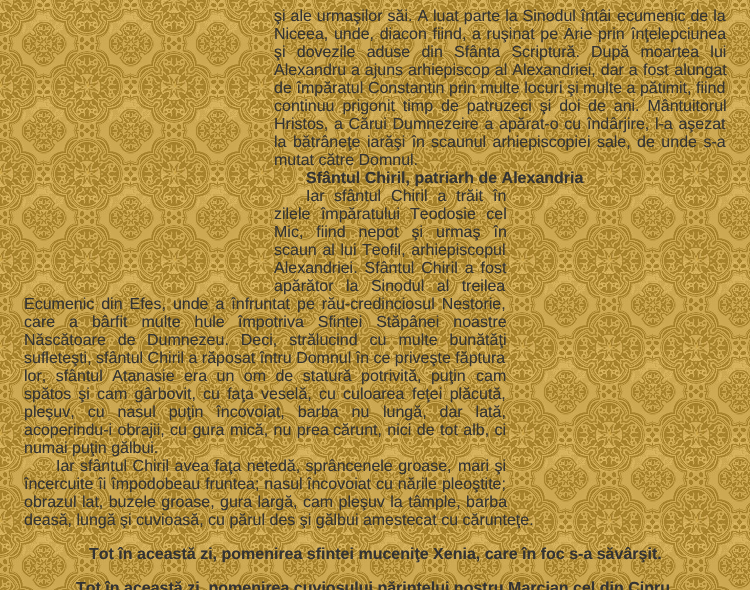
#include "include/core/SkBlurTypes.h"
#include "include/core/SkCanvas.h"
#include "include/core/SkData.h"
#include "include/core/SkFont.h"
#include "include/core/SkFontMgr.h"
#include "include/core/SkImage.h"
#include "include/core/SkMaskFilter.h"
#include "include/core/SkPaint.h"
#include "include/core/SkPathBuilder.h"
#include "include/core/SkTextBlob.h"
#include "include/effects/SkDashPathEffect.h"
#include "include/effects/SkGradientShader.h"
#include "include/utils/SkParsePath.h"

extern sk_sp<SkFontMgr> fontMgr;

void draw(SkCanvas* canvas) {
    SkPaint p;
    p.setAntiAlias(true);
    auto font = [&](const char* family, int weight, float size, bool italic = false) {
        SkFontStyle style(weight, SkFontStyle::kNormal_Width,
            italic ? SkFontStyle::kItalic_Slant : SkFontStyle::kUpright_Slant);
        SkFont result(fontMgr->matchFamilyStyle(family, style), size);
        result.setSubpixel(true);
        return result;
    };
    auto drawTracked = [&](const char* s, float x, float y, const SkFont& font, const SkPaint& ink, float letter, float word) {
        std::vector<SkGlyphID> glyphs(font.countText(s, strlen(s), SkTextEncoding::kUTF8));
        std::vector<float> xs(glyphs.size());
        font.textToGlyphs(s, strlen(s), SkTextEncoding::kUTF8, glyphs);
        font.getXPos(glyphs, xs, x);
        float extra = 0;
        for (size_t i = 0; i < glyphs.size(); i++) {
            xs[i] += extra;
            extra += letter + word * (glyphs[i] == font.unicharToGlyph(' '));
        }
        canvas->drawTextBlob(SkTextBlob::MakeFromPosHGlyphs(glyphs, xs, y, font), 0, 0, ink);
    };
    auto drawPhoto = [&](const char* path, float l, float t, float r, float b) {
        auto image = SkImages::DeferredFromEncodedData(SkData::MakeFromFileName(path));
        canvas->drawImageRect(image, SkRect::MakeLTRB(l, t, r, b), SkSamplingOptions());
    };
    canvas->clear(0xFFFFFFFF);
    drawPhoto("media/1.png", 0, 0, 750, 590);
    auto font1 = font("Liberation Sans", 400, 16);
    p.setColor(0xFF333333);
    drawTracked("şi ale urmaşilor săi. A luat parte la Sinodul întâi", 274, 21, font1, p, 0, 0.5f);
    drawTracked("ecumenic de la", 617, 21, font1, p, 0, 0.5f);
    drawTracked("Niceea, unde, diacon fiind, a ruşinat pe Arie prin", 274, 39, font1, p, 0, 1.25f);
    canvas->drawString("înţelepciunea", 631, 39, font1, p);
    drawTracked("şi dovezile aduse din Sfânta Scriptură.", 274, 57, font1, p, 0, 6.75f);
    drawTracked("După moartea lui", 591, 57, font1, p, 0, 6.75f);
    drawTracked("Alexandru a ajuns arhiepiscop al Alexandriei, dar a", 274, 75, font1, p, 0, 0.5f);
    drawTracked("fost alungat", 643, 75, font1, p, 0, 1);
    drawTracked("de împăratul Constantin prin multe locuri şi", 274, 93, font1, p, 0, 0.25f);
    canvas->drawString("multe a pătimit, fiind", 583, 93, font1, p);
    drawTracked("continuu prigonit timp de patruzeci şi doi", 274, 111, font1, p, 0, 3.5f);
    drawTracked("de ani. Mântuitorul", 588, 111, font1, p, 0, 3.5f);
    drawTracked("Hristos, a Cărui Dumnezeire a apărat-o cu", 274, 129, font1, p, 0, 1.25f);
    drawTracked("îndârjire, l-a aşezat", 587, 129, font1, p, 0, 1.25f);
    drawTracked("la bătrâneţe iarăşi în", 274, 147, font1, p, 0, 2);
    drawTracked("scaunul arhiepiscopiei sale, de unde s-a", 431, 147, font1, p, 0, 2);
    canvas->drawString("mutat către Domnul.", 274, 165, font1, p);
    auto font2 = font("Liberation Sans", 700, 16);
    canvas->drawString("Sfântul Chiril, patriarh de Alexandria", 306, 183, font2, p);
    canvas->drawString("Iar", 306, 201, font1, p);
    drawTracked("sfântul Chiril a trăit în", 334, 201, font1, p, 0, 5.5f);
    drawTracked("zilele împăratului", 274, 219, font1, p, 0, 6);
    drawTracked("Teodosie cel", 410, 219, font1, p, 0, 6);
    drawTracked("Mic, fiind nepot şi urmaş în", 274, 237, font1, p, 0, 8.5f);
    drawTracked("scaun al lui", 274, 255, font1, p, 0, 1.25f);
    drawTracked("Teofil, arhiepiscopul", 362, 255, font1, p, 0, 1.25f);
    drawTracked("Alexandriei. Sfântul Chiril a fost", 274, 273, font1, p, 0, 2.5f);
    drawTracked("apărător la Sinodul al treilea", 274, 291, font1, p, 0, 8);
    drawTracked("Ecumenic din Efes, unde a înfruntat", 24, 309, font1, p, 0, 2.5f);
    drawTracked("pe rău-credinciosul Nestorie,", 297, 309, font1, p, 0, 2.5f);
    drawTracked("care a bârfit multe hule", 24, 327, font1, p, 0, 9.5f);
    drawTracked("împotriva Sfintei Stăpânei noastre", 238, 327, font1, p, 0, 9.5f);
    drawTracked("Născătoare de", 24, 345, font1, p, 0, 7.5f);
    drawTracked("Dumnezeu. Deci, strălucind cu multe bunătăţi", 147, 345, font1, p, 0, 7.5f);
    canvas->drawString("sufleteşti, sfântul Chiril a răposat întru Domnul în ce priveşte făptura", 24, 363, font1, p);
    drawTracked("lor, sfântul Atanasie era un om de statură potrivită, puţin", 24, 381, font1, p, 0, 5);
    canvas->drawString("cam", 476, 381, font1, p);
    drawTracked("spătos şi cam gârbovit, cu faţa veselă, cu culoarea", 24, 399, font1, p, 0, 2.75f);
    drawTracked("feţei plăcută,", 412, 399, font1, p, 0, 3);
    drawTracked("pleşuv, cu nasul puţin încovoiat, barba nu", 24, 417, font1, p, 0, 8.5f);
    drawTracked("lungă, dar lată,", 383, 417, font1, p, 0, 8.5f);
    drawTracked("acoperindu-i obrajii, cu gura mică, nu prea", 24, 435, font1, p, 0, 1);
    drawTracked("cărunt, nici de tot alb, ci", 333, 435, font1, p, 0, 1);
    canvas->drawString("numai puţin gălbui.", 24, 453, font1, p);
    canvas->drawString("Iar", 56, 471, font1, p);
    drawTracked("sfântul Chiril avea faţa netedă, sprâncenele groase,", 80, 471, font1, p, 0, 1);
    drawTracked("mari şi", 458, 471, font1, p, 0, 1);
    drawTracked("încercuite îi împodobeau fruntea; nasul", 24, 489, font1, p, 0, 0.5f);
    drawTracked("încovoiat cu nările pleoştite;", 307, 489, font1, p, 0, 0.5f);
    drawTracked("obrazul lat, buzele groase,", 24, 507, font1, p, 0, 1);
    drawTracked("gura largă, cam pleşuv la tâmple, barba", 220, 507, font1, p, 0, 1);
    canvas->drawString("deasă, lungă şi cuvioasă, cu părul des şi gălbui amestecat cu cărunteţe.", 24, 525, font1, p);
    canvas->drawString("Tot în această zi, pomenirea sfintei muceniţe Xenia, care în foc s-a săvârşit.", 89, 559, font2, p);
    canvas->drawString("Tot în această zi, pomenirea cuviosului părintelui nostru Marcian cel din Cipru", 76, 593, font2, p);
}
